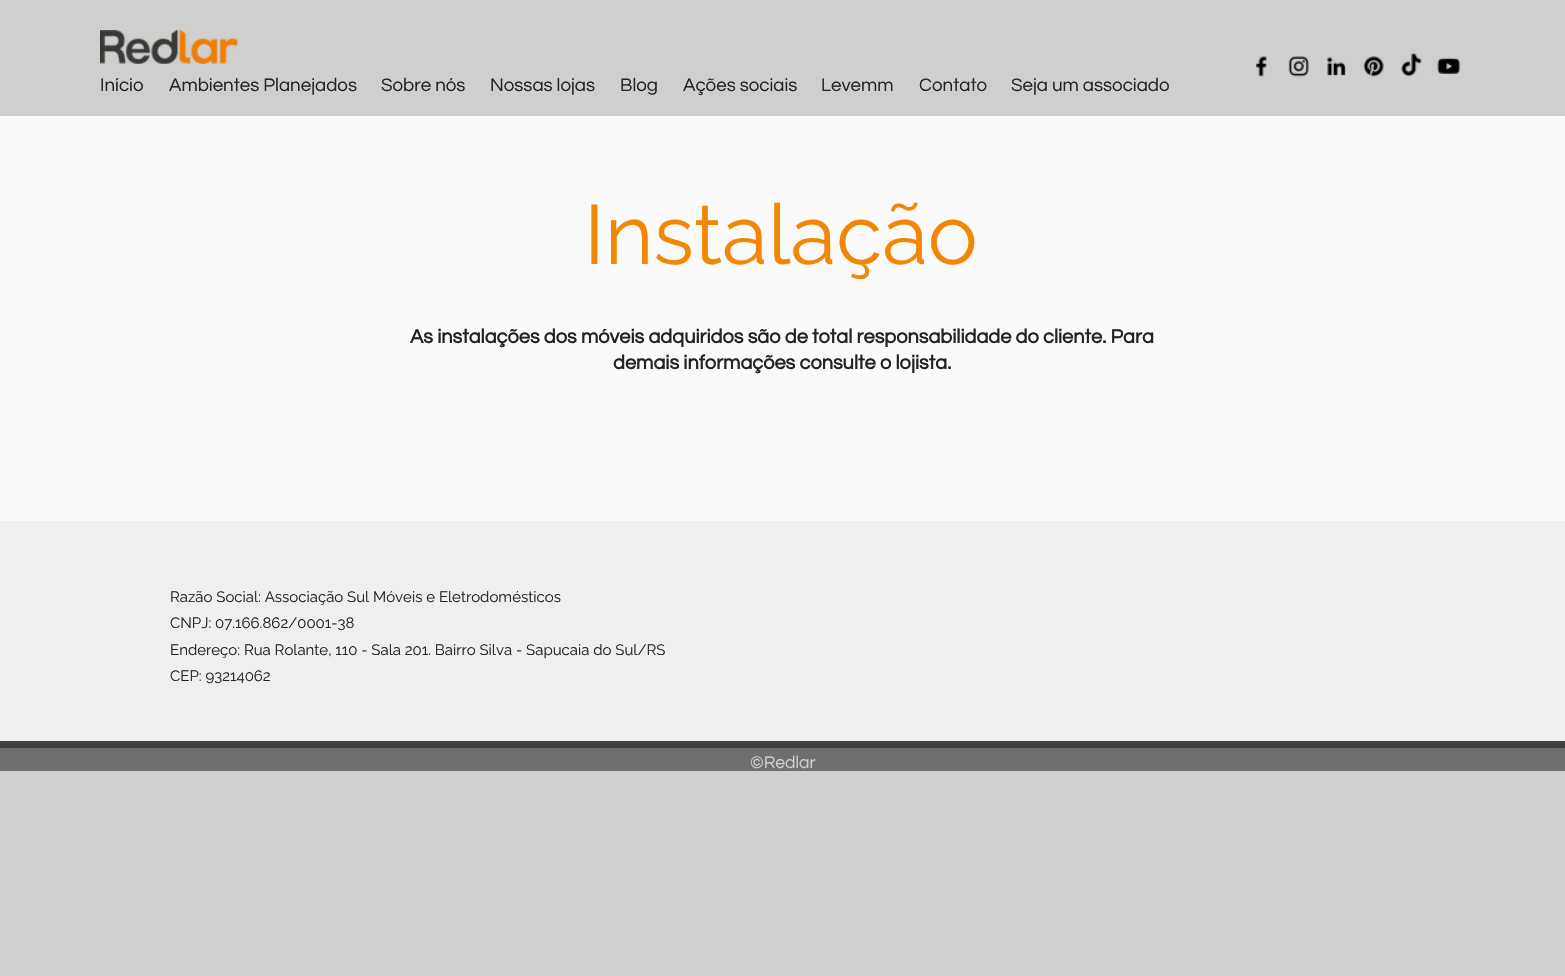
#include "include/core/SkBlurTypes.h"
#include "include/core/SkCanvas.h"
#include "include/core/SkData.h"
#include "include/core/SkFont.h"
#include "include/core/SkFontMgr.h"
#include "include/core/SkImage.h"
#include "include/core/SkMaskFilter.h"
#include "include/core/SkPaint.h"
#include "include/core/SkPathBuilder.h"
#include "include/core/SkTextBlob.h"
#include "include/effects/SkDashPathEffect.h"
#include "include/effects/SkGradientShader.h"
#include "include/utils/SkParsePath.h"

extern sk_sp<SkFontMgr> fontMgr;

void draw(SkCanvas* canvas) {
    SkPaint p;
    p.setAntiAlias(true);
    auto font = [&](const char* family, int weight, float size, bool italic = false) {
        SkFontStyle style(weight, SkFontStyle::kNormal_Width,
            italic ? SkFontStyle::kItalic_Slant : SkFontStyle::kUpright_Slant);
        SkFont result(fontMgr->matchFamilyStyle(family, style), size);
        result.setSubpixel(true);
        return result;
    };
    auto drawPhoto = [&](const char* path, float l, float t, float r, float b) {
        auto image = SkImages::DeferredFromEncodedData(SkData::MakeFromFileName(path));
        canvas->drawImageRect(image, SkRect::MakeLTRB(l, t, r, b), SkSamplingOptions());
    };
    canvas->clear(0xFFCFCFCE);
    drawPhoto("media/1.png", 100, 30, 238, 64);
    drawPhoto("media/2.png", 1256, 56, 1267, 77);
    drawPhoto("media/3.png", 1288, 56, 1309, 77);
    drawPhoto("media/4.png", 1327, 57, 1346, 76);
    drawPhoto("media/5.png", 1363, 56, 1384, 77);
    drawPhoto("media/6.png", 1401, 53, 1422, 77);
    drawPhoto("media/7.png", 1437, 57, 1461, 74);
    auto font1 = font("Questrial", 400, 18.75f);
    p.setColor(0xFF242323);
    {
        const struct { const char* s; float x, y; } items[] = {
            {"Início", 100, 91},
            {"Ambientes Planejados", 169, 91},
            {"Sobre nós", 381, 91},
            {"Nossas lojas", 490, 91},
            {"Blog", 620, 91},
            {"Ações sociais", 683, 91},
            {"Levemm", 821, 91},
            {"Contato", 919, 91},
            {"Seja um associado", 1011, 91},
        };
        for (auto [s, x, y] : items) {
            canvas->drawString(s, x, y, font1, p);
        }
    }
    p.setColor(0xFFFAFAFA);
    canvas->drawRect(SkRect::MakeLTRB(0, 116, 1565, 521), p);
    auto font2 = font("Raleway", 400, 83.75f);
    p.setColor(0xFFF28705);
    canvas->drawString("Instalação", 584, 264, font2, p);
    auto font3 = font("Questrial", 700, 20);
    p.setColor(0xFF242323);
    canvas->drawString("As instalações dos móveis adquiridos são de total responsabilidade do cliente. Para", 410, 343, font3, p);
    canvas->drawString("demais informações consulte o lojista.", 613, 369, font3, p);
    p.setColor(0xFFF0EEEE);
    canvas->drawRect(SkRect::MakeLTRB(0, 521, 1565, 741), p);
    auto font4 = font("Raleway", 400, 15);
    p.setColor(0xFF242323);
    {
        const struct { const char* s; float x, y; } items[] = {
            {"Razão Social: Associação Sul Móveis e Eletrodomésticos", 170, 602},
            {"CNPJ: 07.166.862/0001-38", 170, 628},
            {"Endereço: Rua Rolante, 110 - Sala 201. Bairro Silva - Sapucaia do Sul/RS", 170, 655},
            {"CEP: 93214062", 170, 681},
        };
        for (auto [s, x, y] : items) {
            canvas->drawString(s, x, y, font4, p);
        }
    }
    p.setColor(0xFF6F6F6E);
    canvas->drawRect(SkRect::MakeLTRB(0, 748, 1565, 771), p);
    p.setColor(0xFF3F3F3E);
    canvas->drawRect(SkRect::MakeLTRB(0, 741, 1565, 748), p);
    auto font5 = font("Questrial", 400, 17.5f);
    p.setColor(0xFFCFCFCE);
    canvas->drawString("©Redlar", 750, 768, font5, p);
}
